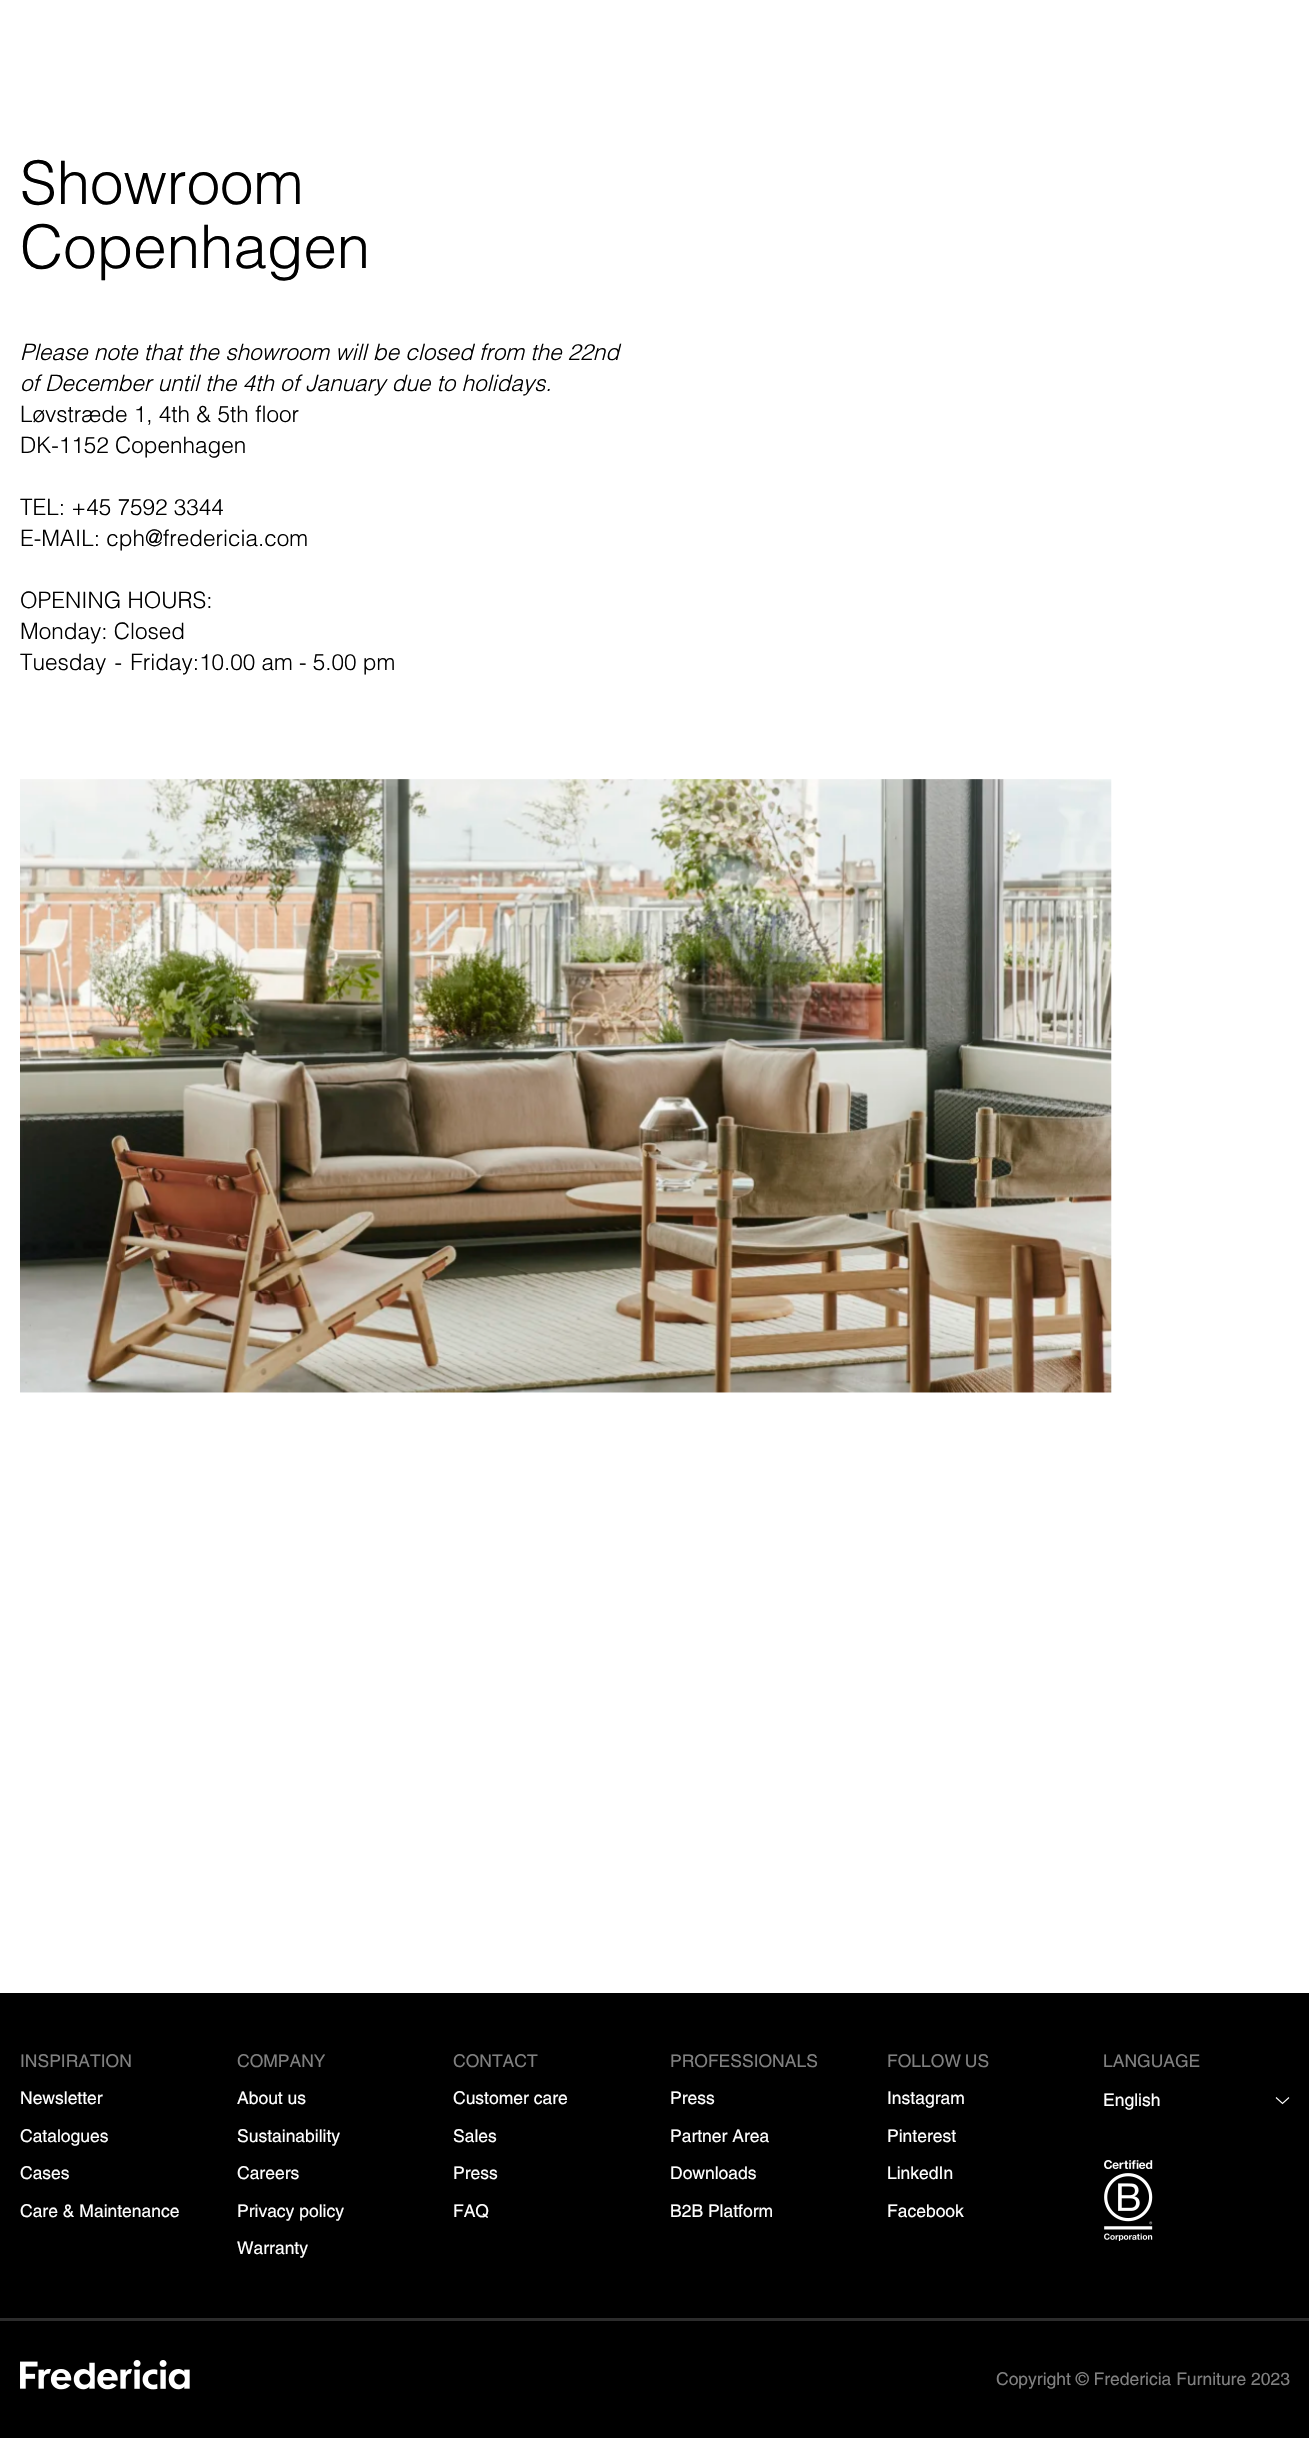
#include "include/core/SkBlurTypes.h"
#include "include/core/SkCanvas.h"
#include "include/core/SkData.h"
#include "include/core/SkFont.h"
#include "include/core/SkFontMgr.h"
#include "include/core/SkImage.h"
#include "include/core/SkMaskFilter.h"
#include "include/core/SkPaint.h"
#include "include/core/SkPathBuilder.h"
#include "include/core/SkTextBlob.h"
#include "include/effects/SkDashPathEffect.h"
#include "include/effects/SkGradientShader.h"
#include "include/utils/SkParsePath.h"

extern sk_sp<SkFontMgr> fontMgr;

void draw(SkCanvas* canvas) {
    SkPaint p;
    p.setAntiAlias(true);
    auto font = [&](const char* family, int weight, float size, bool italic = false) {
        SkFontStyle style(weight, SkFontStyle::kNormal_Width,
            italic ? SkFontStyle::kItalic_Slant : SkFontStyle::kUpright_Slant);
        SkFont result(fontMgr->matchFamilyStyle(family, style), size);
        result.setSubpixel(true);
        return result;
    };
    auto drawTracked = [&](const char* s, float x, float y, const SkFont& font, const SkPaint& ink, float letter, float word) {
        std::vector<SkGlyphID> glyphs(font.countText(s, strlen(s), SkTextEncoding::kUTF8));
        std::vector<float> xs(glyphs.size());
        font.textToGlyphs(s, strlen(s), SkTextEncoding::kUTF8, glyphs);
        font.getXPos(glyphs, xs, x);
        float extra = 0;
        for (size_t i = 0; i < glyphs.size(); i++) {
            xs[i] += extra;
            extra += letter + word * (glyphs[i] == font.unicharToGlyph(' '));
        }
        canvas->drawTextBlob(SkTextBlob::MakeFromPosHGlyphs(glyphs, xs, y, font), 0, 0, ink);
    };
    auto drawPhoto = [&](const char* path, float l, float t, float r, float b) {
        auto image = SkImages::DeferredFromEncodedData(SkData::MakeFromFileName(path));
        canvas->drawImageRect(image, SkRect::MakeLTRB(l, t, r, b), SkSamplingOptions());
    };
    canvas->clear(0xFFFFFFFF);
    auto font1 = font("Helvetica", 300, 60);
    p.setColor(0xFF000000);
    canvas->drawString("Showroom", 20, 204, font1, p);
    canvas->drawString("Copenhagen", 20, 268, font1, p);
    auto font2 = font("Helvetica", 300, 22.5f, true);
    canvas->drawString("Please note that the showroom will be closed from the 22nd", 20, 360, font2, p);
    canvas->drawString("of December until the 4th of January due to holidays.", 20, 391, font2, p);
    auto font3 = font("Helvetica", 300, 22.5f);
    {
        const struct { const char* s; float x, y; } items[] = {
            {"Løvstræde 1, 4th & 5th floor", 20, 422},
            {"DK-1152 Copenhagen", 20, 453},
            {"TEL: +45 7592 3344", 20, 515},
            {"E-MAIL: cph@fredericia.com", 20, 546},
            {"OPENING HOURS:", 20, 608},
            {"Monday: Closed", 20, 639},
        };
        for (auto [s, x, y] : items) {
            canvas->drawString(s, x, y, font3, p);
        }
    }
    drawTracked("Tuesday - Friday:", 20, 670, font3, p, 0, 2);
    canvas->drawString("10.00 am - 5.00 pm", 199, 670, font3, p);
    drawPhoto("media/1.png", 20, 779, 1112, 1393);
    canvas->drawRect(SkRect::MakeLTRB(0, 1993, 1309, 2438), p);
    auto font4 = font("Helvetica", 400, 17.5f);
    p.setColor(0xFF808080);
    canvas->drawString("INSPIRATION", 20, 2067, font4, p);
    p.setColor(0xFFFFFFFF);
    {
        const struct { const char* s; float x, y; } items[] = {
            {"Newsletter", 20, 2104},
            {"Catalogues", 20, 2142},
            {"Cases", 20, 2179},
            {"Care & Maintenance", 20, 2217},
        };
        for (auto [s, x, y] : items) {
            canvas->drawString(s, x, y, font4, p);
        }
    }
    p.setColor(0xFF808080);
    canvas->drawString("COMPANY", 237, 2067, font4, p);
    p.setColor(0xFFFFFFFF);
    {
        const struct { const char* s; float x, y; } items[] = {
            {"About us", 237, 2104},
            {"Sustainability", 237, 2142},
            {"Careers", 237, 2179},
            {"Privacy policy", 237, 2217},
            {"Warranty", 237, 2254},
        };
        for (auto [s, x, y] : items) {
            canvas->drawString(s, x, y, font4, p);
        }
    }
    p.setColor(0xFF808080);
    canvas->drawString("CONTACT", 453, 2067, font4, p);
    p.setColor(0xFFFFFFFF);
    {
        const struct { const char* s; float x, y; } items[] = {
            {"Customer care", 453, 2104},
            {"Sales", 453, 2142},
            {"Press", 453, 2179},
            {"FAQ", 453, 2217},
        };
        for (auto [s, x, y] : items) {
            canvas->drawString(s, x, y, font4, p);
        }
    }
    p.setColor(0xFF808080);
    canvas->drawString("PROFESSIONALS", 670, 2067, font4, p);
    p.setColor(0xFFFFFFFF);
    {
        const struct { const char* s; float x, y; } items[] = {
            {"Press", 670, 2104},
            {"Partner Area", 670, 2142},
            {"Downloads", 670, 2179},
            {"B2B Platform", 670, 2217},
        };
        for (auto [s, x, y] : items) {
            canvas->drawString(s, x, y, font4, p);
        }
    }
    p.setColor(0xFF808080);
    drawTracked("FOLLOW US", 887, 2067, font4, p, 0, -1);
    p.setColor(0xFFFFFFFF);
    {
        const struct { const char* s; float x, y; } items[] = {
            {"Instagram", 887, 2104},
            {"Pinterest", 887, 2142},
            {"LinkedIn", 887, 2179},
            {"Facebook", 887, 2217},
        };
        for (auto [s, x, y] : items) {
            canvas->drawString(s, x, y, font4, p);
        }
    }
    p.setColor(0xFF808080);
    canvas->drawString("LANGUAGE", 1103, 2067, font4, p);
    p.setColor(0xFFFFFFFF);
    canvas->drawString("English", 1103, 2106, font4, p);
    p.setStyle(SkPaint::kStroke_Style);
    p.setStrokeWidth(1.1f);
    canvas->drawPath(SkPathBuilder().moveTo(1276, 2097.5f).lineTo(1282.5f, 2103.5f).lineTo(1289, 2097.5f).detach(), p);
    drawPhoto("media/2.png", 1104, 2160, 1153, 2241);
    p.setStyle(SkPaint::kFill_Style);
    p.setColor(0xFF2C2C2C);
    canvas->drawRect(SkRect::MakeLTRB(0, 2318, 1309, 2321), p);
    drawPhoto("media/3.png", 20, 2360, 190, 2390);
    p.setColor(0xFF808080);
    canvas->drawString("Copyright © Fredericia Furniture 2023", 996, 2385, font4, p);
}
